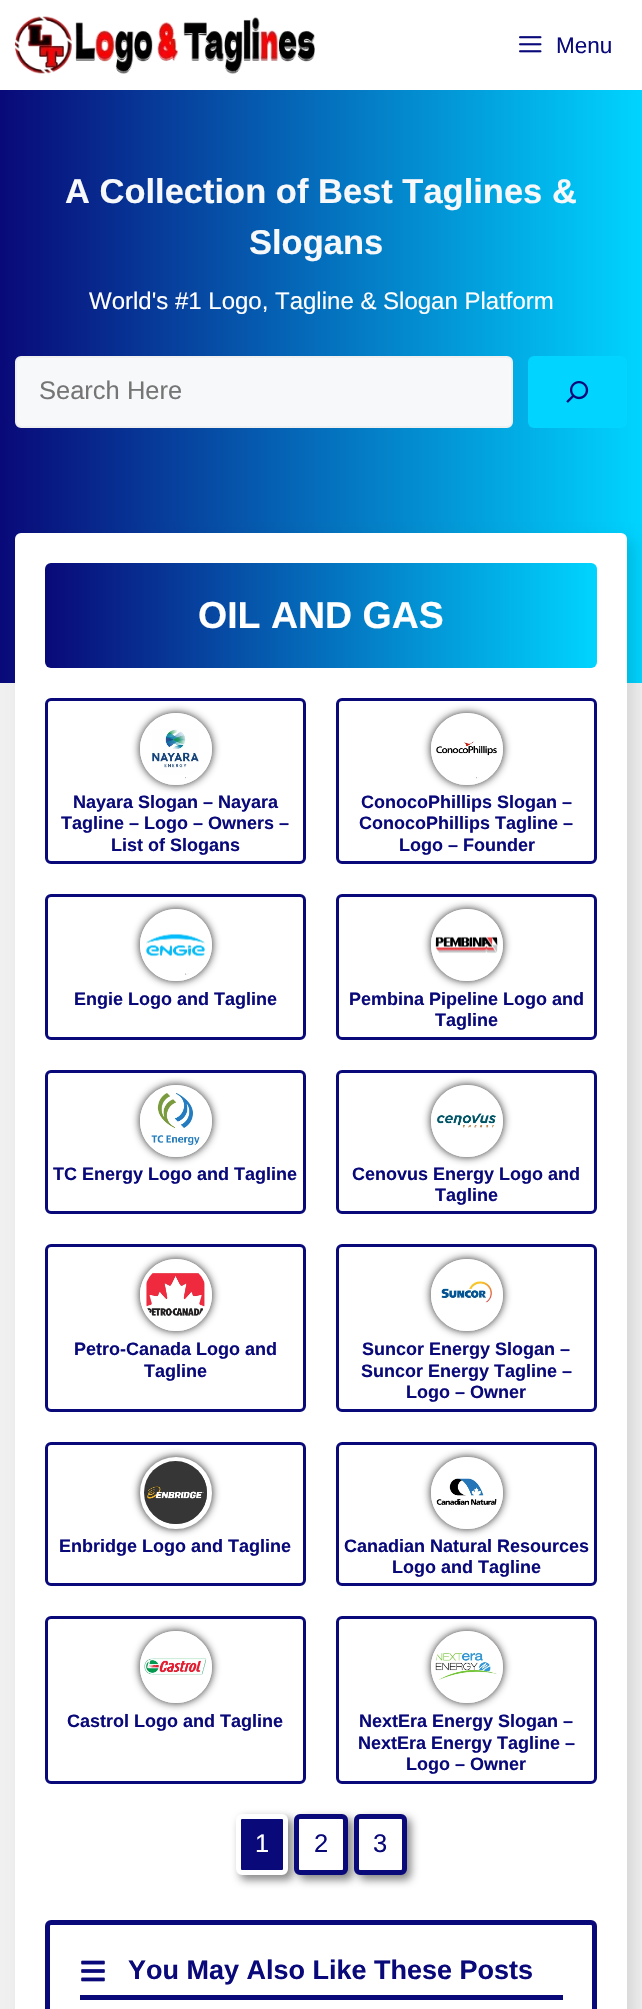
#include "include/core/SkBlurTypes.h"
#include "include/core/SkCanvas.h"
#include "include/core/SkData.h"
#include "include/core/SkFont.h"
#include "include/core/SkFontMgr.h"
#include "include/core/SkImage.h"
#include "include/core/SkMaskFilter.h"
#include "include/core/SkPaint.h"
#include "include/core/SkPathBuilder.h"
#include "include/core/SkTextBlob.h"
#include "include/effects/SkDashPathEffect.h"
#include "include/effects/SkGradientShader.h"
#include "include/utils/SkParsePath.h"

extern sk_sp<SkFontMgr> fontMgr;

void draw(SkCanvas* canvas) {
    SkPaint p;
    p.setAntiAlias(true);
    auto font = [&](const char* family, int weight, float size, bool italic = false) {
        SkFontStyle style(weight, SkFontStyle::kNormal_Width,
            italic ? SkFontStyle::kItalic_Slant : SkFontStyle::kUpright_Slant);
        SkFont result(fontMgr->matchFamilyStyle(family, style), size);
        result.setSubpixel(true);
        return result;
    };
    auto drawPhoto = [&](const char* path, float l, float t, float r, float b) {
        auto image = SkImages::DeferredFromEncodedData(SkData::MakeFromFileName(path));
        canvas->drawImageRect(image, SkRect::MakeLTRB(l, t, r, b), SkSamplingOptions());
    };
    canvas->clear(0xFFF0F0F0);
    p.setColor(0xFFFFFFFF);
    canvas->drawRect(SkRect::MakeLTRB(0, 0, 642, 90), p);
    drawPhoto("media/1.png", 15, 16, 315, 74);
    drawPhoto("media/2.png", 519, 36, 542, 53);
    auto font1 = font("Liberation Sans", 400, 22.5f);
    p.setColor(0xFF090979);
    canvas->drawString("Menu", 556, 53, font1, p);
    {
        const SkColor colors[] = {0xFF090979, 0xFF00D4FF};
        const float stops[] = {0, 1};
        const SkPoint ends[] = {{0, 386}, {642, 386}};
        p.setShader(SkGradientShader::MakeLinear(ends, colors, stops, 2, SkTileMode::kClamp));
        p.setAlpha(255);
    }
    canvas->drawRect(SkRect::MakeLTRB(0, 90, 642, 683), p);
    auto font2 = font("Liberation Sans", 700, 34.5f);
    p.setShader(nullptr);
    p.setColor(0xFFF7F8F9);
    canvas->drawString("A Collection of Best Taglines &", 65, 203, font2, p);
    canvas->drawString("Slogans", 249, 254, font2, p);
    auto font3 = font("Liberation Sans", 400, 24);
    p.setColor(0xFFFFFFFF);
    canvas->drawString("World's #1 Logo, Tagline & Slogan Platform", 89, 309, font3, p);
    p.setColor(0xFFF7F8F9);
    canvas->drawRoundRect(SkRect::MakeLTRB(16, 357, 512, 427), 5, 5, p);
    p.setStyle(SkPaint::kStroke_Style);
    p.setStrokeWidth(2);
    p.setColor(0xFFF0F0F0);
    canvas->drawRoundRect(SkRect::MakeLTRB(16, 357, 512, 427), 5, 5, p);
    auto font4 = font("Liberation Sans", 400, 25.5f);
    p.setStyle(SkPaint::kFill_Style);
    p.setColor(0xFF757575);
    canvas->drawString("Search Here", 39, 399, font4, p);
    p.setColor(0xFF00D4FF);
    canvas->drawRoundRect(SkRect::MakeLTRB(528, 356, 627, 428), 6, 6, p);
    drawPhoto("media/3.png", 566, 381, 589, 403);
    p.setColor(0x1A000000);
    p.setMaskFilter(SkMaskFilter::MakeBlur(kNormal_SkBlurStyle, 7.5f));
    canvas->drawRoundRect(SkRect::MakeLTRB(23, 540, 635, 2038), 6, 6, p);
    p.setMaskFilter(nullptr);
    p.setColor(0xFFFFFFFF);
    canvas->drawRoundRect(SkRect::MakeLTRB(15, 533, 627, 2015), 6, 6, p);
    {
        const SkColor colors[] = {0xFF090979, 0xFF00D4FF};
        const float stops[] = {0, 1};
        const SkPoint ends[] = {{45, 615}, {597, 615}};
        p.setShader(SkGradientShader::MakeLinear(ends, colors, stops, 2, SkTileMode::kClamp));
        p.setAlpha(255);
    }
    canvas->drawRoundRect(SkRect::MakeLTRB(45, 563, 597, 668), 6, 6, p);
    auto font5 = font("Liberation Sans", 700, 37.5f);
    p.setShader(nullptr);
    p.setColor(0xFFFFFFFF);
    canvas->drawString("OIL AND GAS", 198, 628, font5, p);
    p.setStyle(SkPaint::kStroke_Style);
    p.setStrokeWidth(3);
    p.setColor(0xFF090979);
    canvas->drawRoundRect(SkRect::MakeLTRB(46.5f, 699.5f, 304.5f, 862.5f), 4.5f, 4.5f, p);
    canvas->save();
    canvas->clipPath(SkPathBuilder(SkPathFillType::kEvenOdd).moveTo(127, 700).lineTo(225, 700).lineTo(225, 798).lineTo(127, 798).close().moveTo(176, 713).cubicTo(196, 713, 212, 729, 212, 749).cubicTo(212, 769, 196, 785, 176, 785).cubicTo(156, 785, 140, 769, 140, 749).cubicTo(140, 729, 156, 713, 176, 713).close().detach(), true);
    p.setStyle(SkPaint::kFill_Style);
    p.setColor(0xFF222222);
    p.setMaskFilter(SkMaskFilter::MakeBlur(kNormal_SkBlurStyle, 4));
    canvas->drawRoundRect(SkRect::MakeLTRB(140, 713, 212, 785), 36, 36, p);
    p.setMaskFilter(nullptr);
    canvas->restore();
    p.setStyle(SkPaint::kStroke_Style);
    p.setStrokeWidth(5);
    p.setColor(0xFFFFFFFF);
    canvas->drawCircle(176, 749, 33.5f, p);
    drawPhoto("media/4.png", 152, 729, 199, 779);
    auto font6 = font("Liberation Sans", 700, 18);
    p.setStyle(SkPaint::kFill_Style);
    p.setColor(0xFF090979);
    {
        const struct { const char* s; float x, y; } items[] = {
            {"Nayara Slogan – Nayara", 73, 808},
            {"Tagline – Logo – Owners –", 61, 829},
            {"List of Slogans", 111, 851},
        };
        for (auto [s, x, y] : items) {
            canvas->drawString(s, x, y, font6, p);
        }
    }
    p.setStyle(SkPaint::kStroke_Style);
    p.setStrokeWidth(3);
    canvas->drawRoundRect(SkRect::MakeLTRB(337.5f, 699.5f, 595.5f, 862.5f), 4.5f, 4.5f, p);
    canvas->save();
    canvas->clipPath(SkPathBuilder(SkPathFillType::kEvenOdd).moveTo(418, 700).lineTo(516, 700).lineTo(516, 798).lineTo(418, 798).close().moveTo(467, 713).cubicTo(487, 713, 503, 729, 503, 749).cubicTo(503, 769, 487, 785, 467, 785).cubicTo(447, 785, 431, 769, 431, 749).cubicTo(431, 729, 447, 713, 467, 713).close().detach(), true);
    p.setStyle(SkPaint::kFill_Style);
    p.setColor(0xFF222222);
    p.setMaskFilter(SkMaskFilter::MakeBlur(kNormal_SkBlurStyle, 4));
    canvas->drawRoundRect(SkRect::MakeLTRB(431, 713, 503, 785), 36, 36, p);
    p.setMaskFilter(nullptr);
    canvas->restore();
    p.setStyle(SkPaint::kStroke_Style);
    p.setStrokeWidth(5);
    p.setColor(0xFFFFFFFF);
    canvas->drawCircle(467, 749, 33.5f, p);
    drawPhoto("media/5.png", 436, 741, 497, 779);
    p.setStyle(SkPaint::kFill_Style);
    p.setColor(0xFF090979);
    {
        const struct { const char* s; float x, y; } items[] = {
            {"ConocoPhillips Slogan –", 361, 808},
            {"ConocoPhillips Tagline –", 359, 829},
            {"Logo – Founder", 399, 851},
        };
        for (auto [s, x, y] : items) {
            canvas->drawString(s, x, y, font6, p);
        }
    }
    p.setStyle(SkPaint::kStroke_Style);
    p.setStrokeWidth(3);
    canvas->drawRoundRect(SkRect::MakeLTRB(46.5f, 895.5f, 304.5f, 1038.5f), 4.5f, 4.5f, p);
    canvas->save();
    canvas->clipPath(SkPathBuilder(SkPathFillType::kEvenOdd).moveTo(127, 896).lineTo(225, 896).lineTo(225, 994).lineTo(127, 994).close().moveTo(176, 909).cubicTo(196, 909, 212, 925, 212, 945).cubicTo(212, 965, 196, 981, 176, 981).cubicTo(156, 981, 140, 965, 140, 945).cubicTo(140, 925, 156, 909, 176, 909).close().detach(), true);
    p.setStyle(SkPaint::kFill_Style);
    p.setColor(0xFF222222);
    p.setMaskFilter(SkMaskFilter::MakeBlur(kNormal_SkBlurStyle, 4));
    canvas->drawRoundRect(SkRect::MakeLTRB(140, 909, 212, 981), 36, 36, p);
    p.setMaskFilter(nullptr);
    canvas->restore();
    p.setStyle(SkPaint::kStroke_Style);
    p.setStrokeWidth(5);
    p.setColor(0xFFFFFFFF);
    canvas->drawCircle(176, 945, 33.5f, p);
    drawPhoto("media/6.png", 146, 933, 206, 975);
    p.setStyle(SkPaint::kFill_Style);
    p.setColor(0xFF090979);
    canvas->drawString("Engie Logo and Tagline", 74, 1005, font6, p);
    p.setStyle(SkPaint::kStroke_Style);
    p.setStrokeWidth(3);
    canvas->drawRoundRect(SkRect::MakeLTRB(337.5f, 895.5f, 595.5f, 1038.5f), 4.5f, 4.5f, p);
    canvas->save();
    canvas->clipPath(SkPathBuilder(SkPathFillType::kEvenOdd).moveTo(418, 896).lineTo(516, 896).lineTo(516, 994).lineTo(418, 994).close().moveTo(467, 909).cubicTo(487, 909, 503, 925, 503, 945).cubicTo(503, 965, 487, 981, 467, 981).cubicTo(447, 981, 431, 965, 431, 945).cubicTo(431, 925, 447, 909, 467, 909).close().detach(), true);
    p.setStyle(SkPaint::kFill_Style);
    p.setColor(0xFF222222);
    p.setMaskFilter(SkMaskFilter::MakeBlur(kNormal_SkBlurStyle, 4));
    canvas->drawRoundRect(SkRect::MakeLTRB(431, 909, 503, 981), 36, 36, p);
    p.setMaskFilter(nullptr);
    canvas->restore();
    p.setStyle(SkPaint::kStroke_Style);
    p.setStrokeWidth(5);
    p.setColor(0xFFFFFFFF);
    canvas->drawCircle(467, 945, 33.5f, p);
    drawPhoto("media/7.png", 435, 936, 498, 954);
    p.setStyle(SkPaint::kFill_Style);
    p.setColor(0xFF090979);
    canvas->drawString("Pembina Pipeline Logo and", 349, 1005, font6, p);
    canvas->drawString("Tagline", 435, 1026, font6, p);
    p.setStyle(SkPaint::kStroke_Style);
    p.setStrokeWidth(3);
    canvas->drawRoundRect(SkRect::MakeLTRB(46.5f, 1071.5f, 304.5f, 1212.5f), 4.5f, 4.5f, p);
    canvas->save();
    canvas->clipPath(SkPathBuilder(SkPathFillType::kEvenOdd).moveTo(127, 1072).lineTo(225, 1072).lineTo(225, 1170).lineTo(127, 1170).close().moveTo(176, 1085).cubicTo(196, 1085, 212, 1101, 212, 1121).cubicTo(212, 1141, 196, 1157, 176, 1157).cubicTo(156, 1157, 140, 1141, 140, 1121).cubicTo(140, 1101, 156, 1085, 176, 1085).close().detach(), true);
    p.setStyle(SkPaint::kFill_Style);
    p.setColor(0xFF222222);
    p.setMaskFilter(SkMaskFilter::MakeBlur(kNormal_SkBlurStyle, 4));
    canvas->drawRoundRect(SkRect::MakeLTRB(140, 1085, 212, 1157), 36, 36, p);
    p.setMaskFilter(nullptr);
    canvas->restore();
    p.setStyle(SkPaint::kStroke_Style);
    p.setStrokeWidth(5);
    p.setColor(0xFFFFFFFF);
    canvas->drawCircle(176, 1121, 33.5f, p);
    drawPhoto("media/8.png", 151, 1093, 200, 1146);
    p.setStyle(SkPaint::kFill_Style);
    p.setColor(0xFF090979);
    canvas->drawString("TC Energy Logo and Tagline", 53, 1180, font6, p);
    p.setStyle(SkPaint::kStroke_Style);
    p.setStrokeWidth(3);
    canvas->drawRoundRect(SkRect::MakeLTRB(337.5f, 1071.5f, 595.5f, 1212.5f), 4.5f, 4.5f, p);
    canvas->save();
    canvas->clipPath(SkPathBuilder(SkPathFillType::kEvenOdd).moveTo(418, 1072).lineTo(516, 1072).lineTo(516, 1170).lineTo(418, 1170).close().moveTo(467, 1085).cubicTo(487, 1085, 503, 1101, 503, 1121).cubicTo(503, 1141, 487, 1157, 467, 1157).cubicTo(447, 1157, 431, 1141, 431, 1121).cubicTo(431, 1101, 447, 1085, 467, 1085).close().detach(), true);
    p.setStyle(SkPaint::kFill_Style);
    p.setColor(0xFF222222);
    p.setMaskFilter(SkMaskFilter::MakeBlur(kNormal_SkBlurStyle, 4));
    canvas->drawRoundRect(SkRect::MakeLTRB(431, 1085, 503, 1157), 36, 36, p);
    p.setMaskFilter(nullptr);
    canvas->restore();
    p.setStyle(SkPaint::kStroke_Style);
    p.setStrokeWidth(5);
    p.setColor(0xFFFFFFFF);
    canvas->drawCircle(467, 1121, 33.5f, p);
    drawPhoto("media/9.png", 437, 1113, 496, 1128);
    p.setStyle(SkPaint::kFill_Style);
    p.setColor(0xFF090979);
    canvas->drawString("Cenovus Energy Logo and", 352, 1180, font6, p);
    canvas->drawString("Tagline", 435, 1201, font6, p);
    p.setStyle(SkPaint::kStroke_Style);
    p.setStrokeWidth(3);
    canvas->drawRoundRect(SkRect::MakeLTRB(46.5f, 1245.5f, 304.5f, 1410.5f), 4.5f, 4.5f, p);
    canvas->save();
    canvas->clipPath(SkPathBuilder(SkPathFillType::kEvenOdd).moveTo(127, 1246).lineTo(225, 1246).lineTo(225, 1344).lineTo(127, 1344).close().moveTo(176, 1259).cubicTo(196, 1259, 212, 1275, 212, 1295).cubicTo(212, 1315, 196, 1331, 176, 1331).cubicTo(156, 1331, 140, 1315, 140, 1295).cubicTo(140, 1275, 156, 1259, 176, 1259).close().detach(), true);
    p.setStyle(SkPaint::kFill_Style);
    p.setColor(0xFF222222);
    p.setMaskFilter(SkMaskFilter::MakeBlur(kNormal_SkBlurStyle, 4));
    canvas->drawRoundRect(SkRect::MakeLTRB(140, 1259, 212, 1331), 36, 36, p);
    p.setMaskFilter(nullptr);
    canvas->restore();
    p.setStyle(SkPaint::kStroke_Style);
    p.setStrokeWidth(5);
    p.setColor(0xFFFFFFFF);
    canvas->drawCircle(176, 1295, 33.5f, p);
    drawPhoto("media/10.png", 146, 1273, 205, 1316);
    p.setStyle(SkPaint::kFill_Style);
    p.setColor(0xFF090979);
    canvas->drawString("Petro-Canada Logo and", 74, 1355, font6, p);
    canvas->drawString("Tagline", 144, 1377, font6, p);
    p.setStyle(SkPaint::kStroke_Style);
    p.setStrokeWidth(3);
    canvas->drawRoundRect(SkRect::MakeLTRB(337.5f, 1245.5f, 595.5f, 1410.5f), 4.5f, 4.5f, p);
    canvas->save();
    canvas->clipPath(SkPathBuilder(SkPathFillType::kEvenOdd).moveTo(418, 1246).lineTo(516, 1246).lineTo(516, 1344).lineTo(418, 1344).close().moveTo(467, 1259).cubicTo(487, 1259, 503, 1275, 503, 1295).cubicTo(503, 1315, 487, 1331, 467, 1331).cubicTo(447, 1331, 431, 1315, 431, 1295).cubicTo(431, 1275, 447, 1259, 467, 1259).close().detach(), true);
    p.setStyle(SkPaint::kFill_Style);
    p.setColor(0xFF222222);
    p.setMaskFilter(SkMaskFilter::MakeBlur(kNormal_SkBlurStyle, 4));
    canvas->drawRoundRect(SkRect::MakeLTRB(431, 1259, 503, 1331), 36, 36, p);
    p.setMaskFilter(nullptr);
    canvas->restore();
    p.setStyle(SkPaint::kStroke_Style);
    p.setStrokeWidth(5);
    p.setColor(0xFFFFFFFF);
    canvas->drawCircle(467, 1295, 33.5f, p);
    drawPhoto("media/11.png", 441, 1281, 493, 1303);
    p.setStyle(SkPaint::kFill_Style);
    p.setColor(0xFF090979);
    {
        const struct { const char* s; float x, y; } items[] = {
            {"Suncor Energy Slogan –", 362, 1355},
            {"Suncor Energy Tagline –", 361, 1377},
            {"Logo – Owner", 406, 1398},
        };
        for (auto [s, x, y] : items) {
            canvas->drawString(s, x, y, font6, p);
        }
    }
    p.setStyle(SkPaint::kStroke_Style);
    p.setStrokeWidth(3);
    canvas->drawRoundRect(SkRect::MakeLTRB(46.5f, 1443.5f, 304.5f, 1584.5f), 4.5f, 4.5f, p);
    p.setStyle(SkPaint::kFill_Style);
    p.setColor(0xFF222222);
    p.setMaskFilter(SkMaskFilter::MakeBlur(kNormal_SkBlurStyle, 4));
    canvas->drawRoundRect(SkRect::MakeLTRB(140, 1457, 212, 1529), 36, 36, p);
    p.setMaskFilter(nullptr);
    p.setStyle(SkPaint::kStroke_Style);
    p.setStrokeWidth(5);
    p.setColor(0xFFFFFFFF);
    canvas->drawCircle(176, 1493, 33.5f, p);
    drawPhoto("media/12.png", 144, 1461, 207, 1524);
    p.setStyle(SkPaint::kFill_Style);
    p.setColor(0xFF090979);
    canvas->drawString("Enbridge Logo and Tagline", 59, 1552, font6, p);
    p.setStyle(SkPaint::kStroke_Style);
    p.setStrokeWidth(3);
    canvas->drawRoundRect(SkRect::MakeLTRB(337.5f, 1443.5f, 595.5f, 1584.5f), 4.5f, 4.5f, p);
    canvas->save();
    canvas->clipPath(SkPathBuilder(SkPathFillType::kEvenOdd).moveTo(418, 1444).lineTo(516, 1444).lineTo(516, 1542).lineTo(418, 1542).close().moveTo(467, 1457).cubicTo(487, 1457, 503, 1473, 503, 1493).cubicTo(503, 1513, 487, 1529, 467, 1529).cubicTo(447, 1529, 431, 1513, 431, 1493).cubicTo(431, 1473, 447, 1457, 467, 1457).close().detach(), true);
    p.setStyle(SkPaint::kFill_Style);
    p.setColor(0xFF222222);
    p.setMaskFilter(SkMaskFilter::MakeBlur(kNormal_SkBlurStyle, 4));
    canvas->drawRoundRect(SkRect::MakeLTRB(431, 1457, 503, 1529), 36, 36, p);
    p.setMaskFilter(nullptr);
    canvas->restore();
    p.setStyle(SkPaint::kStroke_Style);
    p.setStrokeWidth(5);
    p.setColor(0xFFFFFFFF);
    canvas->drawCircle(467, 1493, 33.5f, p);
    drawPhoto("media/13.png", 436, 1478, 497, 1505);
    p.setStyle(SkPaint::kFill_Style);
    p.setColor(0xFF090979);
    canvas->drawString("Canadian Natural Resources", 344, 1552, font6, p);
    canvas->drawString("Logo and Tagline", 392, 1573, font6, p);
    p.setStyle(SkPaint::kStroke_Style);
    p.setStrokeWidth(3);
    canvas->drawRoundRect(SkRect::MakeLTRB(46.5f, 1617.5f, 304.5f, 1782.5f), 4.5f, 4.5f, p);
    canvas->save();
    canvas->clipPath(SkPathBuilder(SkPathFillType::kEvenOdd).moveTo(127, 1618).lineTo(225, 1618).lineTo(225, 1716).lineTo(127, 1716).close().moveTo(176, 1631).cubicTo(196, 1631, 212, 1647, 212, 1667).cubicTo(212, 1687, 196, 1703, 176, 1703).cubicTo(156, 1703, 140, 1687, 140, 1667).cubicTo(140, 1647, 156, 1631, 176, 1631).close().detach(), true);
    p.setStyle(SkPaint::kFill_Style);
    p.setColor(0xFF222222);
    p.setMaskFilter(SkMaskFilter::MakeBlur(kNormal_SkBlurStyle, 4));
    canvas->drawRoundRect(SkRect::MakeLTRB(140, 1631, 212, 1703), 36, 36, p);
    p.setMaskFilter(nullptr);
    canvas->restore();
    p.setStyle(SkPaint::kStroke_Style);
    p.setStrokeWidth(5);
    p.setColor(0xFFFFFFFF);
    canvas->drawCircle(176, 1667, 33.5f, p);
    drawPhoto("media/14.png", 144, 1657, 207, 1675);
    p.setStyle(SkPaint::kFill_Style);
    p.setColor(0xFF090979);
    canvas->drawString("Castrol Logo and Tagline", 67, 1727, font6, p);
    p.setStyle(SkPaint::kStroke_Style);
    p.setStrokeWidth(3);
    canvas->drawRoundRect(SkRect::MakeLTRB(337.5f, 1617.5f, 595.5f, 1782.5f), 4.5f, 4.5f, p);
    canvas->save();
    canvas->clipPath(SkPathBuilder(SkPathFillType::kEvenOdd).moveTo(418, 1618).lineTo(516, 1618).lineTo(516, 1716).lineTo(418, 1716).close().moveTo(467, 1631).cubicTo(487, 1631, 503, 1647, 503, 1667).cubicTo(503, 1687, 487, 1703, 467, 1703).cubicTo(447, 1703, 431, 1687, 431, 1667).cubicTo(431, 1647, 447, 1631, 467, 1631).close().detach(), true);
    p.setStyle(SkPaint::kFill_Style);
    p.setColor(0xFF222222);
    p.setMaskFilter(SkMaskFilter::MakeBlur(kNormal_SkBlurStyle, 4));
    canvas->drawRoundRect(SkRect::MakeLTRB(431, 1631, 503, 1703), 36, 36, p);
    p.setMaskFilter(nullptr);
    canvas->restore();
    p.setStyle(SkPaint::kStroke_Style);
    p.setStrokeWidth(5);
    p.setColor(0xFFFFFFFF);
    canvas->drawCircle(467, 1667, 33.5f, p);
    drawPhoto("media/15.png", 435, 1652, 497, 1680);
    p.setStyle(SkPaint::kFill_Style);
    p.setColor(0xFF090979);
    {
        const struct { const char* s; float x, y; } items[] = {
            {"NextEra Energy Slogan –", 359, 1727},
            {"NextEra Energy Tagline –", 358, 1749},
            {"Logo – Owner", 406, 1770},
        };
        for (auto [s, x, y] : items) {
            canvas->drawString(s, x, y, font6, p);
        }
    }
    p.setColor(0x78000000);
    p.setMaskFilter(SkMaskFilter::MakeBlur(kNormal_SkBlurStyle, 4));
    canvas->drawRoundRect(SkRect::MakeLTRB(240, 1818, 293, 1880), 6, 6, p);
    p.setMaskFilter(nullptr);
    p.setColor(0xFF090979);
    canvas->drawRoundRect(SkRect::MakeLTRB(238.5f, 1816.5f, 285.5f, 1872.5f), 3.5f, 3.5f, p);
    p.setStyle(SkPaint::kStroke_Style);
    p.setColor(0xFFFFFFFF);
    canvas->drawRoundRect(SkRect::MakeLTRB(238.5f, 1816.5f, 285.5f, 1872.5f), 3.5f, 3.5f, p);
    p.setStyle(SkPaint::kFill_Style);
    canvas->drawString("1", 255, 1852, font4, p);
    p.setColor(0x78000000);
    p.setMaskFilter(SkMaskFilter::MakeBlur(kNormal_SkBlurStyle, 4));
    canvas->drawRoundRect(SkRect::MakeLTRB(299, 1818, 353, 1880), 6, 6, p);
    p.setMaskFilter(nullptr);
    p.setColor(0xFFFFFFFF);
    canvas->drawRoundRect(SkRect::MakeLTRB(296.5f, 1816.5f, 345.5f, 1872.5f), 3.5f, 3.5f, p);
    p.setStyle(SkPaint::kStroke_Style);
    p.setColor(0xFF090979);
    canvas->drawRoundRect(SkRect::MakeLTRB(296.5f, 1816.5f, 345.5f, 1872.5f), 3.5f, 3.5f, p);
    p.setStyle(SkPaint::kFill_Style);
    canvas->drawString("2", 314, 1852, font4, p);
    p.setColor(0x78000000);
    p.setMaskFilter(SkMaskFilter::MakeBlur(kNormal_SkBlurStyle, 4));
    canvas->drawRoundRect(SkRect::MakeLTRB(359, 1818, 411, 1880), 6, 6, p);
    p.setMaskFilter(nullptr);
    p.setColor(0xFFFFFFFF);
    canvas->drawRoundRect(SkRect::MakeLTRB(356.5f, 1816.5f, 404.5f, 1872.5f), 3.5f, 3.5f, p);
    p.setStyle(SkPaint::kStroke_Style);
    p.setColor(0xFF090979);
    canvas->drawRoundRect(SkRect::MakeLTRB(356.5f, 1816.5f, 404.5f, 1872.5f), 3.5f, 3.5f, p);
    p.setStyle(SkPaint::kFill_Style);
    canvas->drawString("3", 373, 1852, font4, p);
    p.setStyle(SkPaint::kStroke_Style);
    canvas->drawRoundRect(SkRect::MakeLTRB(47.5f, 1922.5f, 594.5f, 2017.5f), 3.5f, 3.5f, p);
    p.setStyle(SkPaint::kFill_Style);
    canvas->drawRect(SkRect::MakeLTRB(80, 1995, 563, 2000), p);
    drawPhoto("media/16.png", 81, 1960, 105, 1982);
    auto font7 = font("Liberation Sans", 700, 27);
    canvas->drawString("You May Also Like These Posts", 128, 1979, font7, p);
}
